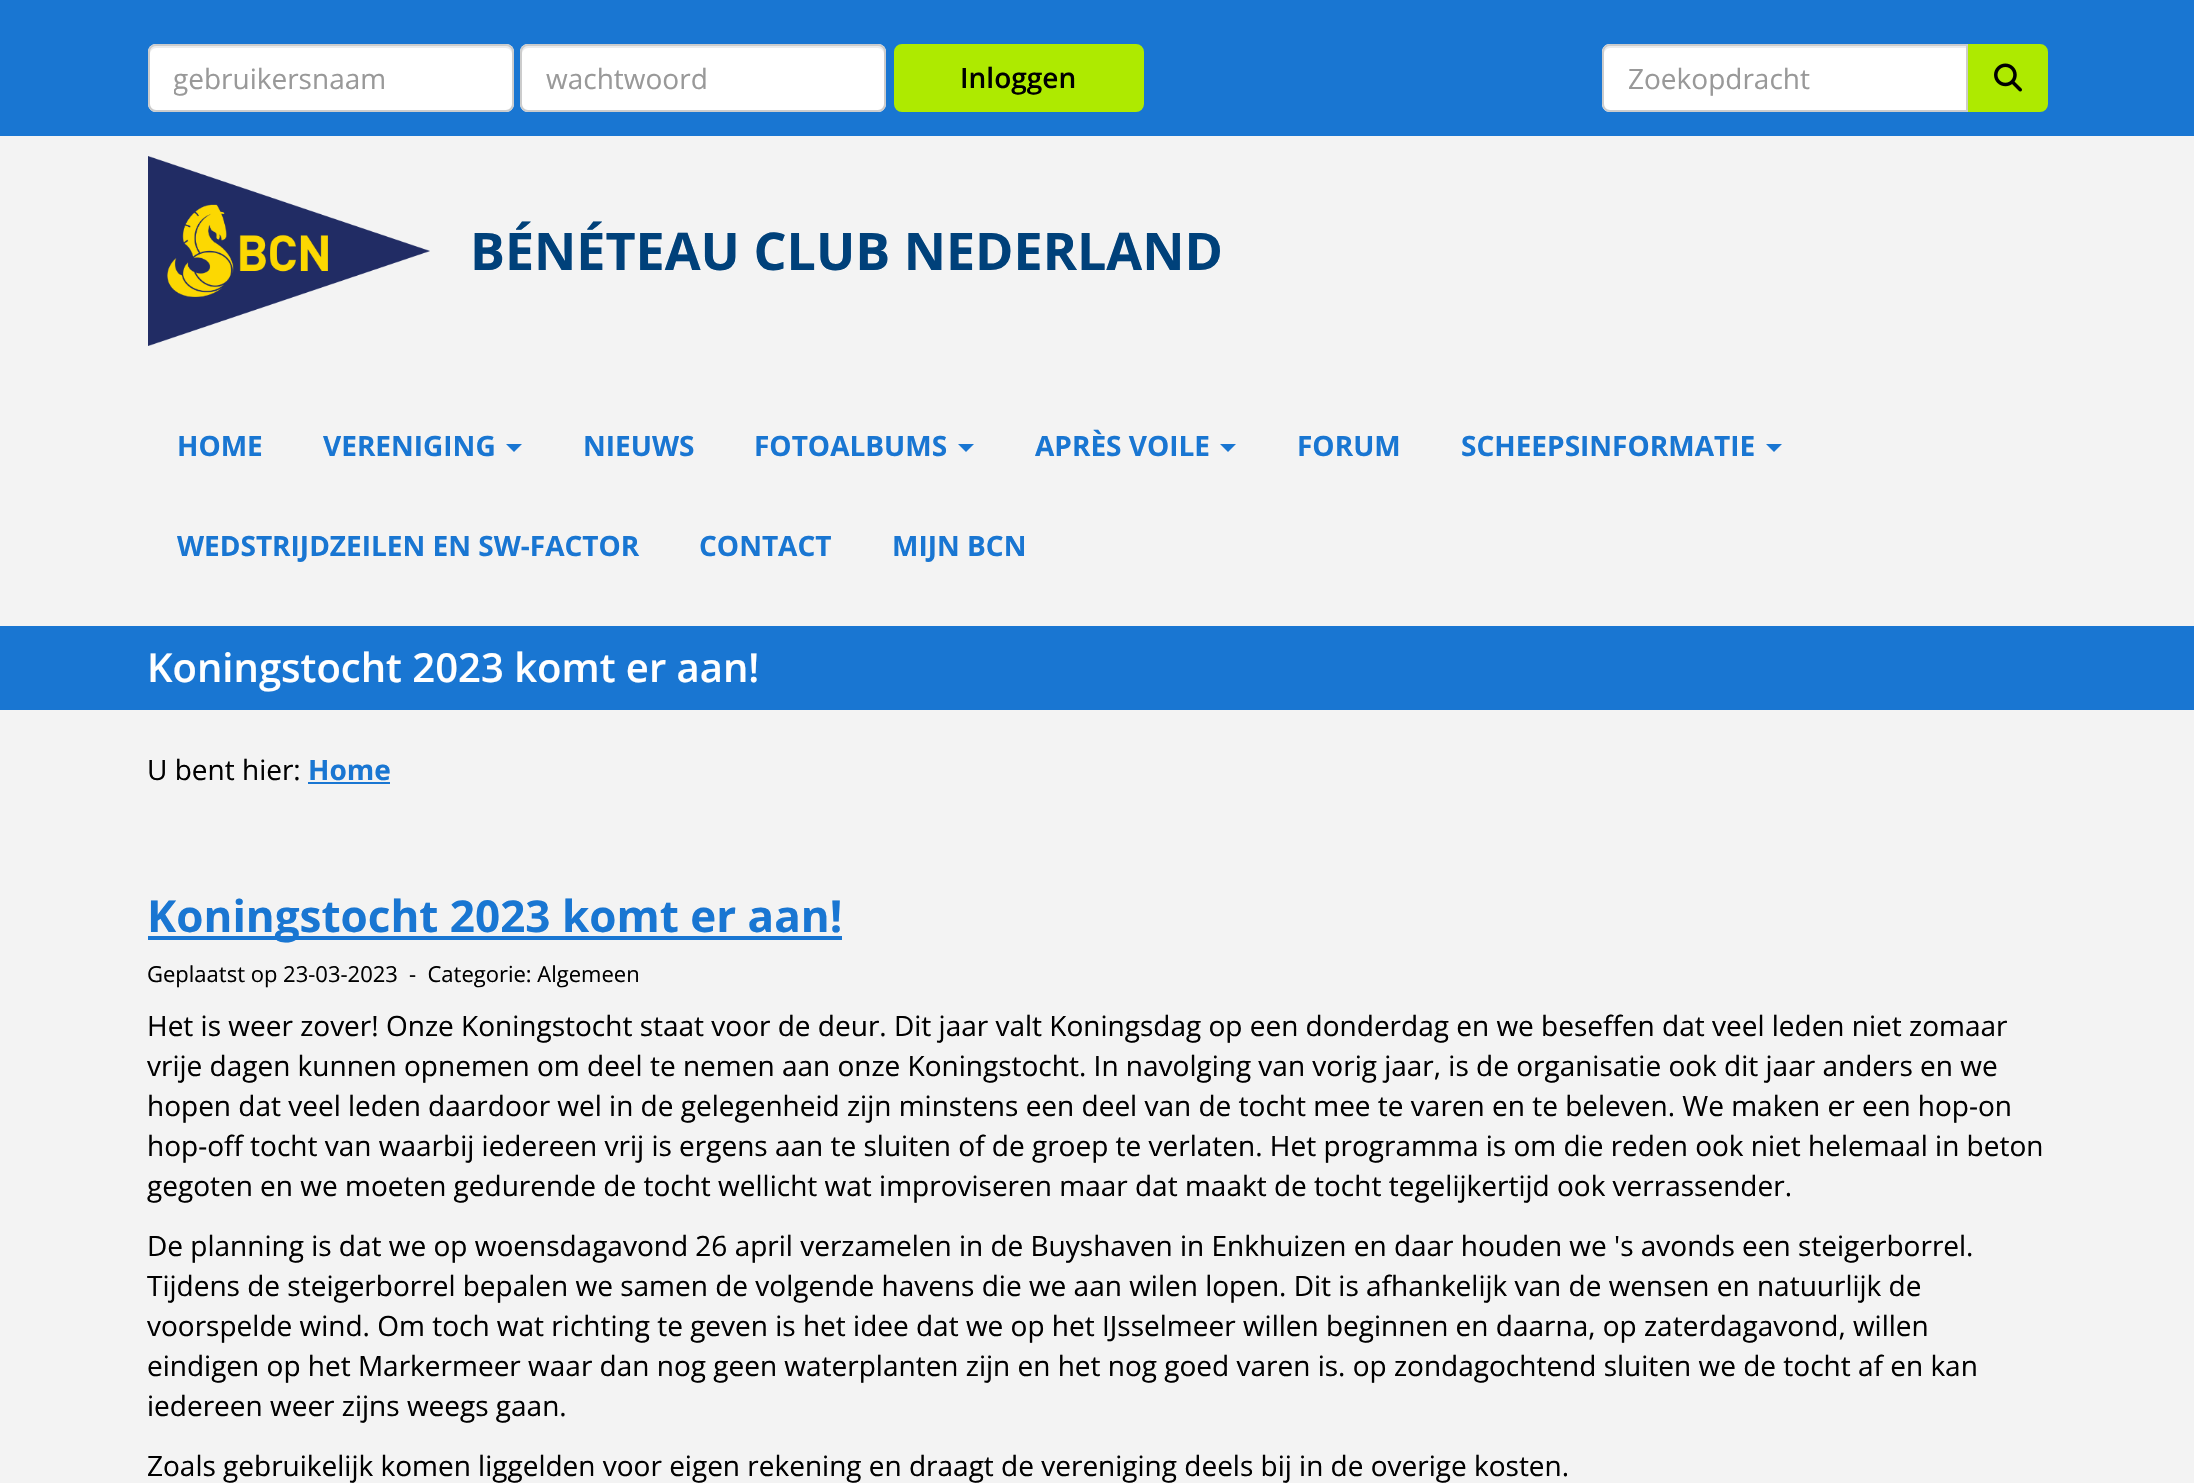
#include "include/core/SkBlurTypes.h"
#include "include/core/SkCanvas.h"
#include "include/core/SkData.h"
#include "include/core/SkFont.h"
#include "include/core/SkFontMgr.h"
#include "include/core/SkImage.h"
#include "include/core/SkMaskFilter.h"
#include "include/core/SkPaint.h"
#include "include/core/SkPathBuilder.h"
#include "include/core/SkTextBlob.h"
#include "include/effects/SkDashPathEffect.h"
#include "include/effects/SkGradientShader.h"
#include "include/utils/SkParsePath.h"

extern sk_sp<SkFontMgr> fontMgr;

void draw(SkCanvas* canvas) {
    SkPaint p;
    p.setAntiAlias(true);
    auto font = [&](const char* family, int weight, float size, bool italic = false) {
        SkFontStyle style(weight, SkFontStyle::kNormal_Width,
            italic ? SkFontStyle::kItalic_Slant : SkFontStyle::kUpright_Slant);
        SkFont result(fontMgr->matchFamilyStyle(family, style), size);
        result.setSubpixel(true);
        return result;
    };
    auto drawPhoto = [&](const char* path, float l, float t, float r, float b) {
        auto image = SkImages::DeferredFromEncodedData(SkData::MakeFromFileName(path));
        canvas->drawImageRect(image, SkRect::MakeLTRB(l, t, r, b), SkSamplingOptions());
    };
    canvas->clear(0xFFF3F3F3);
    p.setColor(0xFF1976D2);
    canvas->drawRect(SkRect::MakeLTRB(0, 0, 2194, 136), p);
    p.setColor(0xFFFFFFFF);
    canvas->drawRoundRect(SkRect::MakeLTRB(148, 44, 514, 112), 8, 8, p);
    p.setColor(0xFFECECEC);
    canvas->drawPath(SkPathBuilder().moveTo(156, 48).lineTo(506, 48).cubicTo(509, 48, 512, 51, 512, 54).lineTo(512, 52).cubicTo(512, 49, 509, 46, 506, 46).lineTo(156, 46).cubicTo(153, 46, 150, 49, 150, 52).lineTo(150, 54).cubicTo(150, 51, 153, 48, 156, 48).close().detach(), p);
    p.setStyle(SkPaint::kStroke_Style);
    p.setStrokeWidth(2);
    p.setColor(0xFFCCCCCC);
    canvas->drawRoundRect(SkRect::MakeLTRB(149, 45, 513, 111), 7, 7, p);
    canvas->save();
    canvas->clipRect(SkRect::MakeLTRB(174, 60, 488, 98));
    auto font1 = font("Open Sans", 400, 28);
    p.setStyle(SkPaint::kFill_Style);
    p.setColor(0xFF999999);
    canvas->drawString("gebruikersnaam", 173, 89, font1, p);
    canvas->restore();
    p.setColor(0xFFFFFFFF);
    canvas->drawRoundRect(SkRect::MakeLTRB(520, 44, 886, 112), 8, 8, p);
    p.setColor(0xFFECECEC);
    canvas->drawPath(SkPathBuilder().moveTo(528, 48).lineTo(878, 48).cubicTo(881, 48, 884, 51, 884, 54).lineTo(884, 52).cubicTo(884, 49, 881, 46, 878, 46).lineTo(528, 46).cubicTo(525, 46, 522, 49, 522, 52).lineTo(522, 54).cubicTo(522, 51, 525, 48, 528, 48).close().detach(), p);
    p.setStyle(SkPaint::kStroke_Style);
    p.setColor(0xFFCCCCCC);
    canvas->drawRoundRect(SkRect::MakeLTRB(521, 45, 885, 111), 7, 7, p);
    p.setStyle(SkPaint::kFill_Style);
    p.setColor(0xFF999999);
    canvas->drawString("wachtwoord", 546, 89, font1, p);
    p.setColor(0xFFAEEA00);
    canvas->drawRoundRect(SkRect::MakeLTRB(895, 45, 1143, 111), 7, 7, p);
    p.setStyle(SkPaint::kStroke_Style);
    canvas->drawRoundRect(SkRect::MakeLTRB(895, 45, 1143, 111), 7, 7, p);
    auto font2 = font("Open Sans", 600, 28);
    p.setStyle(SkPaint::kFill_Style);
    p.setColor(0xFF000000);
    canvas->drawString("Inloggen", 960, 88, font2, p);
    p.setColor(0xFFFFFFFF);
    canvas->drawPath(SkPathBuilder().moveTo(1610, 44).lineTo(1968, 44).lineTo(1968, 112).lineTo(1610, 112).cubicTo(1605.5f, 112, 1602, 108.5f, 1602, 104).lineTo(1602, 52).cubicTo(1602, 47.5f, 1605.5f, 44, 1610, 44).close().detach(), p);
    p.setColor(0xFFECECEC);
    canvas->drawPath(SkPathBuilder().moveTo(1610, 48).lineTo(1966, 48).lineTo(1966, 46).lineTo(1610, 46).cubicTo(1607, 46, 1604, 49, 1604, 52).lineTo(1604, 54).cubicTo(1604, 51, 1607, 48, 1610, 48).close().detach(), p);
    p.setStyle(SkPaint::kStroke_Style);
    p.setColor(0xFFCCCCCC);
    canvas->drawPath(SkPathBuilder().moveTo(1610, 45).lineTo(1967, 45).lineTo(1967, 111).lineTo(1610, 111).cubicTo(1606, 111, 1603, 108, 1603, 104).lineTo(1603, 52).cubicTo(1603, 48, 1606, 45, 1610, 45).close().detach(), p);
    p.setStyle(SkPaint::kFill_Style);
    p.setColor(0xFF999999);
    canvas->drawString("Zoekopdracht", 1628, 89, font1, p);
    p.setColor(0xFFAEEA00);
    canvas->drawPath(SkPathBuilder().moveTo(1969, 45).lineTo(2040, 45).cubicTo(2044, 45, 2047, 48, 2047, 52).lineTo(2047, 104).cubicTo(2047, 108, 2044, 111, 2040, 111).lineTo(1969, 111).close().detach(), p);
    p.setStyle(SkPaint::kStroke_Style);
    canvas->drawPath(SkPathBuilder().moveTo(1969, 45).lineTo(2040, 45).cubicTo(2044, 45, 2047, 48, 2047, 52).lineTo(2047, 104).cubicTo(2047, 108, 2044, 111, 2040, 111).lineTo(1969, 111).close().detach(), p);
    drawPhoto("media/1.png", 1994, 63, 2022, 92);
    drawPhoto("media/2.png", 148, 156, 430, 346);
    auto font3 = font("Open Sans", 700, 52);
    p.setStyle(SkPaint::kFill_Style);
    p.setColor(0xFF00417A);
    canvas->drawString("BÉNÉTEAU CLUB NEDERLAND", 470, 270, font3, p);
    auto font4 = font("Open Sans", 700, 28);
    p.setColor(0xFF1976D2);
    canvas->drawString("HOME", 177, 456, font4, p);
    canvas->drawString("VERENIGING", 323, 456, font4, p);
    canvas->drawPath(SkPathBuilder().moveTo(506, 444).lineTo(522, 444).lineTo(514, 452).close().detach(), p);
    canvas->drawString("NIEUWS", 583, 456, font4, p);
    canvas->drawString("FOTOALBUMS", 754, 456, font4, p);
    canvas->drawPath(SkPathBuilder().moveTo(958, 444).lineTo(974, 444).lineTo(966, 452).close().detach(), p);
    canvas->drawString("APRÈS VOILE", 1035, 456, font4, p);
    canvas->drawPath(SkPathBuilder().moveTo(1220, 444).lineTo(1236, 444).lineTo(1228, 452).close().detach(), p);
    canvas->drawString("FORUM", 1297, 456, font4, p);
    canvas->drawString("SCHEEPSINFORMATIE", 1461, 456, font4, p);
    canvas->drawPath(SkPathBuilder().moveTo(1766, 444).lineTo(1782, 444).lineTo(1774, 452).close().detach(), p);
    {
        const struct { const char* s; float x, y; } items[] = {
            {"WEDSTRIJDZEILEN EN SW-FACTOR", 177, 556},
            {"CONTACT", 699, 556},
            {"MIJN BCN", 892, 556},
        };
        for (auto [s, x, y] : items) {
            canvas->drawString(s, x, y, font4, p);
        }
    }
    canvas->drawRect(SkRect::MakeLTRB(0, 626, 2194, 710), p);
    auto font5 = font("Open Sans", 600, 40);
    p.setColor(0xFFFFFFFF);
    canvas->drawString("Koningstocht 2023 komt er aan!", 147, 682, font5, p);
    p.setColor(0xFF000000);
    canvas->drawString("U bent hier:", 147, 780, font1, p);
    p.setColor(0xFF1976D2);
    canvas->drawString("Home", 308, 780, font4, p);
    canvas->drawRect(SkRect::MakeLTRB(308, 782, 390, 784), p);
    canvas->drawRect(SkRect::MakeLTRB(148, 936, 842, 940), p);
    auto font6 = font("Open Sans", 700, 44);
    canvas->drawString("Koningstocht 2023 komt er aan!", 147, 932, font6, p);
    auto font7 = font("Open Sans", 400, 22);
    p.setColor(0xFF000000);
    canvas->drawString("Geplaatst op 23-03-2023", 147, 982, font7, p);
    canvas->drawString("-  Categorie: Algemeen", 409, 982, font7, p);
    {
        const struct { const char* s; float x, y; } items[] = {
            {"Het is weer zover! Onze Koningstocht staat voor de deur. Dit jaar valt Koningsdag op een donderdag en we beseffen dat veel leden niet zomaar", 147, 1036},
            {"vrije dagen kunnen opnemen om deel te nemen aan onze Koningstocht. In navolging van vorig jaar, is de organisatie ook dit jaar anders en we", 147, 1076},
            {"hopen dat veel leden daardoor wel in de gelegenheid zijn minstens een deel van de tocht mee te varen en te beleven. We maken er een hop-on", 147, 1116},
            {"hop-off tocht van waarbij iedereen vrij is ergens aan te sluiten of de groep te verlaten. Het programma is om die reden ook niet helemaal in beton", 147, 1156},
            {"gegoten en we moeten gedurende de tocht wellicht wat improviseren maar dat maakt de tocht tegelijkertijd ook verrassender.", 147, 1196},
            {"De planning is dat we op woensdagavond 26 april verzamelen in de Buyshaven in Enkhuizen en daar houden we 's avonds een steigerborrel.", 147, 1256},
            {"Tijdens de steigerborrel bepalen we samen de volgende havens die we aan wilen lopen. Dit is afhankelijk van de wensen en natuurlijk de", 147, 1296},
            {"voorspelde wind. Om toch wat richting te geven is het idee dat we op het IJsselmeer willen beginnen en daarna, op zaterdagavond, willen", 147, 1336},
            {"eindigen op het Markermeer waar dan nog geen waterplanten zijn en het nog goed varen is. op zondagochtend sluiten we de tocht af en kan", 147, 1376},
            {"iedereen weer zijns weegs gaan.", 147, 1416},
            {"Zoals gebruikelijk komen liggelden voor eigen rekening en draagt de vereniging deels bij in de overige kosten.", 147, 1476},
        };
        for (auto [s, x, y] : items) {
            canvas->drawString(s, x, y, font1, p);
        }
    }
}
